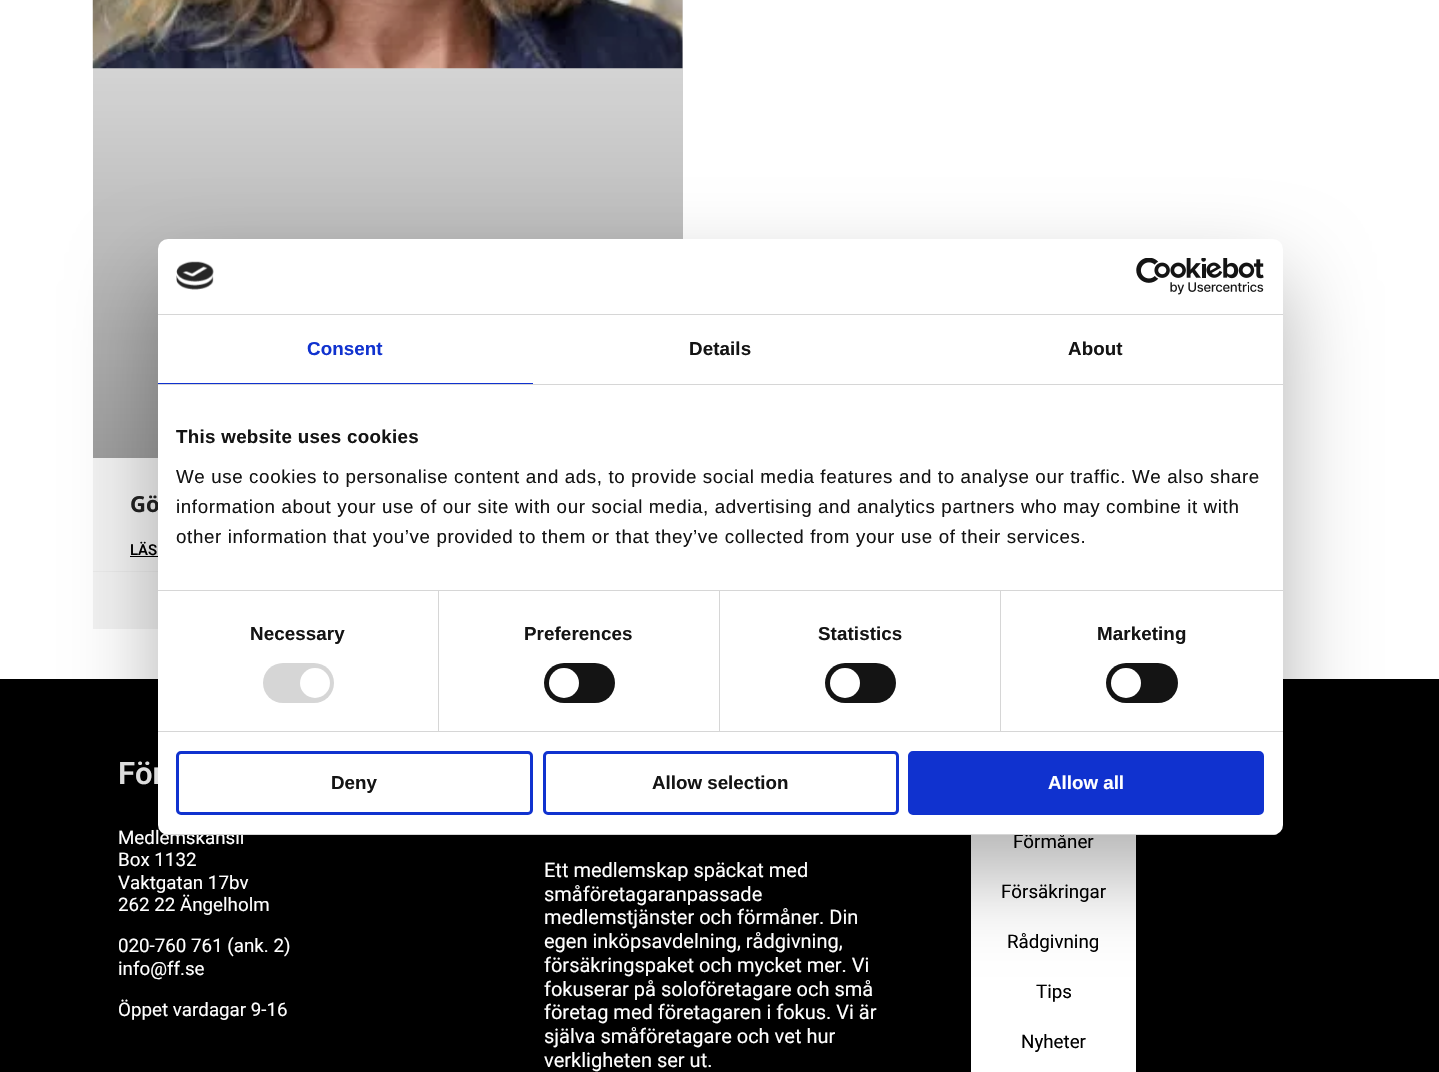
#include "include/core/SkBlurTypes.h"
#include "include/core/SkCanvas.h"
#include "include/core/SkData.h"
#include "include/core/SkFont.h"
#include "include/core/SkFontMgr.h"
#include "include/core/SkImage.h"
#include "include/core/SkMaskFilter.h"
#include "include/core/SkPaint.h"
#include "include/core/SkPathBuilder.h"
#include "include/core/SkTextBlob.h"
#include "include/effects/SkDashPathEffect.h"
#include "include/effects/SkGradientShader.h"
#include "include/utils/SkParsePath.h"

extern sk_sp<SkFontMgr> fontMgr;

void draw(SkCanvas* canvas) {
    SkPaint p;
    p.setAntiAlias(true);
    auto font = [&](const char* family, int weight, float size, bool italic = false) {
        SkFontStyle style(weight, SkFontStyle::kNormal_Width,
            italic ? SkFontStyle::kItalic_Slant : SkFontStyle::kUpright_Slant);
        SkFont result(fontMgr->matchFamilyStyle(family, style), size);
        result.setSubpixel(true);
        return result;
    };
    auto drawTracked = [&](const char* s, float x, float y, const SkFont& font, const SkPaint& ink, float letter, float word) {
        std::vector<SkGlyphID> glyphs(font.countText(s, strlen(s), SkTextEncoding::kUTF8));
        std::vector<float> xs(glyphs.size());
        font.textToGlyphs(s, strlen(s), SkTextEncoding::kUTF8, glyphs);
        font.getXPos(glyphs, xs, x);
        float extra = 0;
        for (size_t i = 0; i < glyphs.size(); i++) {
            xs[i] += extra;
            extra += letter + word * (glyphs[i] == font.unicharToGlyph(' '));
        }
        canvas->drawTextBlob(SkTextBlob::MakeFromPosHGlyphs(glyphs, xs, y, font), 0, 0, ink);
    };
    auto drawPhoto = [&](const char* path, float l, float t, float r, float b) {
        auto image = SkImages::DeferredFromEncodedData(SkData::MakeFromFileName(path));
        canvas->drawImageRect(image, SkRect::MakeLTRB(l, t, r, b), SkSamplingOptions());
    };
    canvas->clear(0xFFFFFFFF);
    p.setColor(0xFFF2F2F2);
    canvas->drawRect(SkRect::MakeLTRB(93, 0, 683, 629), p);
    drawPhoto("media/1.png", 92, 0, 683, 69);
    {
        const SkColor colors[] = {0x59000000, 0x00000000};
        const float stops[] = {0, 0.75f};
        const SkPoint ends[] = {{388, 458}, {388, -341}};
        p.setShader(SkGradientShader::MakeLinear(ends, colors, stops, 2, SkTileMode::kClamp));
        p.setAlpha(255);
    }
    canvas->drawRect(SkRect::MakeLTRB(93, 0, 683, 458), p);
    auto font1 = font("Open Sans", 700, 22);
    p.setShader(nullptr);
    p.setColor(0xFF222222);
    canvas->drawString("Gö", 130, 512, font1, p);
    auto font2 = font("Roboto", 500, 15);
    p.setColor(0xFF000000);
    canvas->drawString("LÄS", 130, 555, font2, p);
    {
        const struct { float l, t, r, b; SkColor color; } items[] = {
            {130, 556, 158, 557, 0xFF000000},
            {93, 571, 158, 572, 0xFFEAEAEA},
            {0, 679, 1439, 1072, 0xFF000000},
            {971, 835, 1136, 1072, 0xFFFFFFFF},
        };
        for (auto [l, t, r, b, color] : items) {
            p.setColor(color);
            canvas->drawRect(SkRect::MakeLTRB(l, t, r, b), p);
        }
    }
    p.setColor(0x4D000000);
    p.setMaskFilter(SkMaskFilter::MakeBlur(kNormal_SkBlurStyle, 42.5f));
    canvas->drawRoundRect(SkRect::MakeLTRB(158, 279, 1283, 875), 10, 10, p);
    p.setMaskFilter(nullptr);
    auto font3 = font("Roboto", 600, 31);
    p.setColor(0xFFDDDDDD);
    canvas->drawString("För", 118, 784, font3, p);
    auto font4 = font("Roboto", 400, 18.75f);
    p.setColor(0xFF000000);
    canvas->drawString("Förmåner", 1013, 848, font4, p);
    p.setColor(0xFFFFFFFF);
    canvas->drawRoundRect(SkRect::MakeLTRB(158, 239, 1283, 835), 10, 10, p);
    p.setColor(0xFFD6D6D6);
    canvas->drawRect(SkRect::MakeLTRB(158, 314, 1283, 315), p);
    drawPhoto("media/2.png", 176, 261, 214, 290);
    drawPhoto("media/3.png", 1136, 258, 1264, 295);
    canvas->drawRect(SkRect::MakeLTRB(158, 384, 1283, 385), p);
    p.setColor(0xFF1032CF);
    canvas->drawRect(SkRect::MakeLTRB(158, 383, 533, 384), p);
    auto font5 = font("Liberation Sans", 700, 18.75f);
    drawTracked("Consent", 307, 355, font5, p, 0.1f, 0);
    p.setColor(0xFF141414);
    drawTracked("Details", 689, 355, font5, p, 0.1f, 0);
    drawTracked("About", 1068, 355, font5, p, 0.1f, 0);
    p.setColor(0xFFD6D6D6);
    canvas->drawRect(SkRect::MakeLTRB(158, 590, 1283, 591), p);
    p.setColor(0xFF141414);
    drawTracked("This website uses cookies", 176, 443, font5, p, 0.3f, 0);
    auto font6 = font("Liberation Sans", 400, 18.75f);
    {
        const struct { const char* s; float x, y; } items[] = {
            {"We use cookies to personalise content and ads, to provide social media features and to analyse our traffic. We also share", 176, 483},
            {"information about your use of our site with our social media, advertising and analytics partners who may combine it with", 176, 513},
            {"other information that you’ve provided to them or that they’ve collected from your use of their services.", 176, 543},
        };
        for (auto [s, x, y] : items) {
            drawTracked(s, x, y, font6, p, 0.62f, 0);
        }
    }
    p.setColor(0xFFD6D6D6);
    canvas->drawRect(SkRect::MakeLTRB(158, 731, 1283, 732), p);
    canvas->drawRect(SkRect::MakeLTRB(438, 591, 439, 731), p);
    p.setColor(0xFF141414);
    drawTracked("Necessary", 250, 640, font5, p, 0.1f, 0);
    p.setColor(0xFFD6D6D6);
    canvas->drawRoundRect(SkRect::MakeLTRB(263, 663, 334, 703), 20, 20, p);
    p.setColor(0xFFFFFFFF);
    canvas->drawCircle(315, 683, 15, p);
    p.setColor(0xFFD6D6D6);
    canvas->drawRect(SkRect::MakeLTRB(719, 591, 720, 731), p);
    p.setColor(0xFF141414);
    drawTracked("Preferences", 524, 640, font5, p, 0.1f, 0);
    canvas->drawRoundRect(SkRect::MakeLTRB(544, 663, 615, 703), 20, 20, p);
    p.setColor(0xFFFFFFFF);
    canvas->drawCircle(564, 683, 15, p);
    p.setColor(0xFFD6D6D6);
    canvas->drawRect(SkRect::MakeLTRB(1000, 591, 1001, 731), p);
    p.setColor(0xFF141414);
    drawTracked("Statistics", 818, 640, font5, p, 0.1f, 0);
    canvas->drawRoundRect(SkRect::MakeLTRB(825, 663, 896, 703), 20, 20, p);
    p.setColor(0xFFFFFFFF);
    canvas->drawCircle(845, 683, 15, p);
    p.setColor(0xFF141414);
    drawTracked("Marketing", 1097, 640, font5, p, 0.1f, 0);
    canvas->drawRoundRect(SkRect::MakeLTRB(1106, 663, 1178, 703), 20, 20, p);
    p.setColor(0xFFFFFFFF);
    canvas->drawCircle(1126, 683, 15, p);
    canvas->drawString("Medlemskansli", 118, 844, font4, p);
    canvas->save();
    canvas->clipPath(SkPathBuilder().moveTo(168, 239).lineTo(1273, 239).cubicTo(1278.5f, 239, 1283, 243.5f, 1283, 249).lineTo(1283, 825).cubicTo(1283, 830.5f, 1278.5f, 835, 1273, 835).lineTo(168, 835).cubicTo(162.5f, 835, 158, 830.5f, 158, 825).lineTo(158, 249).cubicTo(158, 243.5f, 162.5f, 239, 168, 239).close().detach(), true);
    p.setColor(0xFFD6D6D6);
    canvas->drawRect(SkRect::MakeLTRB(158, 834, 1283, 835), p);
    canvas->restore();
    p.setStyle(SkPaint::kStroke_Style);
    p.setStrokeWidth(3);
    p.setColor(0xFF1032CF);
    canvas->drawRoundRect(SkRect::MakeLTRB(177.5f, 752.5f, 531.5f, 813.5f), 3.5f, 3.5f, p);
    p.setStyle(SkPaint::kFill_Style);
    p.setColor(0xFF141414);
    canvas->drawString("Deny", 331, 789, font5, p);
    p.setStyle(SkPaint::kStroke_Style);
    p.setColor(0xFF1032CF);
    canvas->drawRoundRect(SkRect::MakeLTRB(544.5f, 752.5f, 897.5f, 813.5f), 3.5f, 3.5f, p);
    p.setStyle(SkPaint::kFill_Style);
    p.setColor(0xFF141414);
    canvas->drawString("Allow selection", 652, 789, font5, p);
    p.setColor(0xFF1032CF);
    canvas->drawRoundRect(SkRect::MakeLTRB(909.5f, 752.5f, 1262.5f, 813.5f), 3.5f, 3.5f, p);
    p.setStyle(SkPaint::kStroke_Style);
    canvas->drawRoundRect(SkRect::MakeLTRB(909.5f, 752.5f, 1262.5f, 813.5f), 3.5f, 3.5f, p);
    p.setStyle(SkPaint::kFill_Style);
    p.setColor(0xFFFFFFFF);
    canvas->drawString("Allow all", 1048, 789, font5, p);
    {
        const struct { const char* s; float x, y; } items[] = {
            {"Box 1132", 118, 866},
            {"Vaktgatan 17bv", 118, 889},
            {"262 22 Ängelholm", 118, 911},
            {"020-760 761 (ank. 2)", 118, 952},
            {"info@ff.se", 118, 975},
            {"Öppet vardagar 9-16", 118, 1016},
        };
        for (auto [s, x, y] : items) {
            canvas->drawString(s, x, y, font4, p);
        }
    }
    auto font7 = font("Roboto", 400, 20);
    {
        const struct { const char* s; float x, y; } items[] = {
            {"Ett medlemskap späckat med", 544, 877},
            {"småföretagaranpassade", 544, 901},
            {"medlemstjänster och förmåner. Din", 544, 924},
            {"egen inköpsavdelning, rådgivning,", 544, 948},
            {"försäkringspaket och mycket mer. Vi", 544, 972},
            {"fokuserar på soloföretagare och små", 544, 996},
            {"företag med företagaren i fokus. Vi är", 544, 1019},
            {"själva småföretagare och vet hur", 544, 1043},
            {"verkligheten ser ut.", 544, 1067},
        };
        for (auto [s, x, y] : items) {
            canvas->drawString(s, x, y, font7, p);
        }
    }
    p.setColor(0xFF000000);
    {
        const struct { const char* s; float x, y; } items[] = {
            {"Försäkringar", 1001, 898},
            {"Rådgivning", 1007, 948},
            {"Tips", 1036, 998},
            {"Nyheter", 1021, 1048},
        };
        for (auto [s, x, y] : items) {
            canvas->drawString(s, x, y, font4, p);
        }
    }
}
